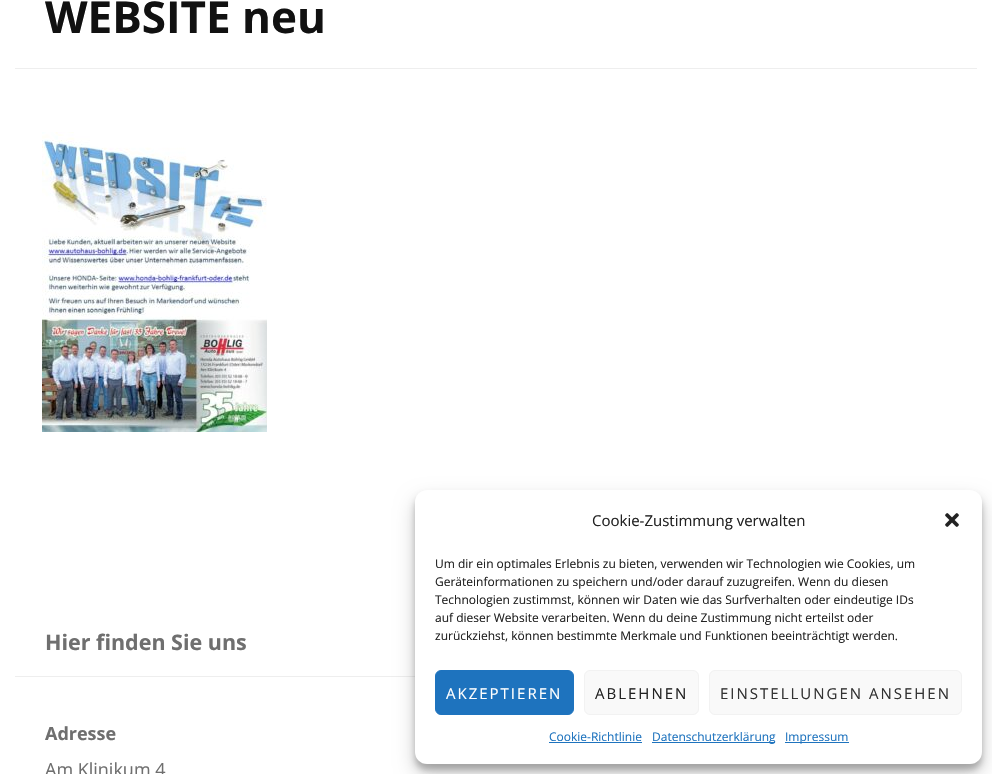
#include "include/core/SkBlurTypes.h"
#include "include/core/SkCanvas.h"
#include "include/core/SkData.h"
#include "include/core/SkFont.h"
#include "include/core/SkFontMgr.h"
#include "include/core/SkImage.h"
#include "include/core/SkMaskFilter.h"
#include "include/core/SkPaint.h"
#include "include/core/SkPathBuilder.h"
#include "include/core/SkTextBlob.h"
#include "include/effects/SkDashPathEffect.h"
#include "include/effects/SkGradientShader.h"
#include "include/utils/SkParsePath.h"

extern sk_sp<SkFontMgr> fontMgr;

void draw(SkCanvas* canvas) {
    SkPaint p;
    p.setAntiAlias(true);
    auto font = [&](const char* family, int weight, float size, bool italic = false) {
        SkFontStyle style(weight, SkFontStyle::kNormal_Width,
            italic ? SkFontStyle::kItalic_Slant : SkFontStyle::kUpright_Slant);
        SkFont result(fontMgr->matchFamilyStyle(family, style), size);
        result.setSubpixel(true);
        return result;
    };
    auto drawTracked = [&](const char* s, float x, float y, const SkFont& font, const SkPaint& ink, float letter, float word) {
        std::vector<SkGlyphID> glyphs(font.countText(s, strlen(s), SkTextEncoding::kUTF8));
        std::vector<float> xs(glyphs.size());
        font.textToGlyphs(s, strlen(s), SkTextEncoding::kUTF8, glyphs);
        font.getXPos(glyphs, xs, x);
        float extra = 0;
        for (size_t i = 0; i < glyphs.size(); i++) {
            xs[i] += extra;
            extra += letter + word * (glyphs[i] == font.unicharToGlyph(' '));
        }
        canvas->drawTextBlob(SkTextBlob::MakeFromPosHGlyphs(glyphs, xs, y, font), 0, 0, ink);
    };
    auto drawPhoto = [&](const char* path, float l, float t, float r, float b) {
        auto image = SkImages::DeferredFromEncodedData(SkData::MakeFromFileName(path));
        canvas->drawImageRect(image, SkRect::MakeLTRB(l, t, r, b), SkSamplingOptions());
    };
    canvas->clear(0xFFFFFFFF);
    p.setColor(0xFFEEEEEE);
    canvas->drawRect(SkRect::MakeLTRB(15, 68, 977, 69), p);
    auto font1 = font("Open Sans", 700, 44);
    p.setColor(0xFF111111);
    canvas->drawString("WEBSITE neu", 45, 33, font1, p);
    drawPhoto("media/1.png", 42, 132, 267, 432);
    p.setColor(0xFFEEEEEE);
    canvas->drawRect(SkRect::MakeLTRB(15, 676, 415, 677), p);
    auto font2 = font("Open Sans", 700, 21.5f);
    p.setColor(0xFF6F6F6F);
    canvas->drawString("Hier finden Sie uns", 45, 650, font2, p);
    auto font3 = font("Open Sans", 700, 18);
    canvas->drawString("Adresse", 45, 740, font3, p);
    auto font4 = font("Open Sans", 400, 18);
    canvas->drawString("Am Klinikum 4", 45, 776, font4, p);
    p.setColor(0x3B000000);
    p.setMaskFilter(SkMaskFilter::MakeBlur(kNormal_SkBlurStyle, 3));
    canvas->drawRoundRect(SkRect::MakeLTRB(415, 496, 982, 770), 12, 12, p);
    p.setMaskFilter(nullptr);
    p.setColor(0x30000000);
    p.setMaskFilter(SkMaskFilter::MakeBlur(kNormal_SkBlurStyle, 10));
    canvas->drawRoundRect(SkRect::MakeLTRB(415, 500, 982, 774), 12, 12, p);
    p.setMaskFilter(nullptr);
    p.setColor(0xFFFFFFFF);
    canvas->drawRoundRect(SkRect::MakeLTRB(415, 490, 982, 764), 12, 12, p);
    auto font5 = font("Open Sans", 400, 15);
    p.setColor(0xFF222222);
    canvas->drawString("Cookie-Zustimmung verwalten", 592, 526, font5, p);
    drawPhoto("media/2.png", 945, 513, 959, 527);
    auto font6 = font("Open Sans", 400, 12);
    {
        const struct { const char* s; float x, y; } items[] = {
            {"Um dir ein optimales Erlebnis zu bieten, verwenden wir Technologien wie Cookies, um", 435, 568},
            {"Geräteinformationen zu speichern und/oder darauf zuzugreifen. Wenn du diesen", 435, 586},
            {"Technologien zustimmst, können wir Daten wie das Surfverhalten oder eindeutige IDs", 435, 604},
            {"auf dieser Website verarbeiten. Wenn du deine Zustimmung nicht erteilst oder", 435, 622},
            {"zurückziehst, können bestimmte Merkmale und Funktionen beeinträchtigt werden.", 435, 640},
        };
        for (auto [s, x, y] : items) {
            canvas->drawString(s, x, y, font6, p);
        }
    }
    p.setColor(0xFF1E73BE);
    canvas->drawRoundRect(SkRect::MakeLTRB(435.5f, 670.5f, 573.5f, 714.5f), 5.5f, 5.5f, p);
    p.setStyle(SkPaint::kStroke_Style);
    p.setStrokeWidth(1);
    canvas->drawRoundRect(SkRect::MakeLTRB(435.5f, 670.5f, 573.5f, 714.5f), 5.5f, 5.5f, p);
    p.setStyle(SkPaint::kFill_Style);
    p.setColor(0xFFFFFFFF);
    drawTracked("AKZEPTIEREN", 446, 699, font5, p, 2, 0);
    p.setColor(0xFFF9F9F9);
    canvas->drawRoundRect(SkRect::MakeLTRB(584.5f, 670.5f, 698.5f, 714.5f), 5.5f, 5.5f, p);
    p.setStyle(SkPaint::kStroke_Style);
    p.setColor(0xFFF2F2F2);
    canvas->drawRoundRect(SkRect::MakeLTRB(584.5f, 670.5f, 698.5f, 714.5f), 5.5f, 5.5f, p);
    p.setStyle(SkPaint::kFill_Style);
    p.setColor(0xFF222222);
    drawTracked("ABLEHNEN", 595, 699, font5, p, 2, 0);
    p.setColor(0xFFF9F9F9);
    canvas->drawRoundRect(SkRect::MakeLTRB(709.5f, 670.5f, 961.5f, 714.5f), 5.5f, 5.5f, p);
    p.setStyle(SkPaint::kStroke_Style);
    p.setColor(0xFFF2F2F2);
    canvas->drawRoundRect(SkRect::MakeLTRB(709.5f, 670.5f, 961.5f, 714.5f), 5.5f, 5.5f, p);
    p.setStyle(SkPaint::kFill_Style);
    p.setColor(0xFF333333);
    drawTracked("EINSTELLUNGEN ANSEHEN", 720, 699, font5, p, 2, 0);
    p.setColor(0xFF1E73BE);
    canvas->drawString("Cookie-Richtlinie", 549, 741, font6, p);
    canvas->drawRect(SkRect::MakeLTRB(549, 742, 642, 743), p);
    canvas->drawRect(SkRect::MakeLTRB(652, 742, 775, 743), p);
    canvas->drawString("Datenschutzerklärung", 652, 741, font6, p);
    canvas->drawRect(SkRect::MakeLTRB(785, 742, 849, 743), p);
    canvas->drawString("Impressum", 785, 741, font6, p);
}
